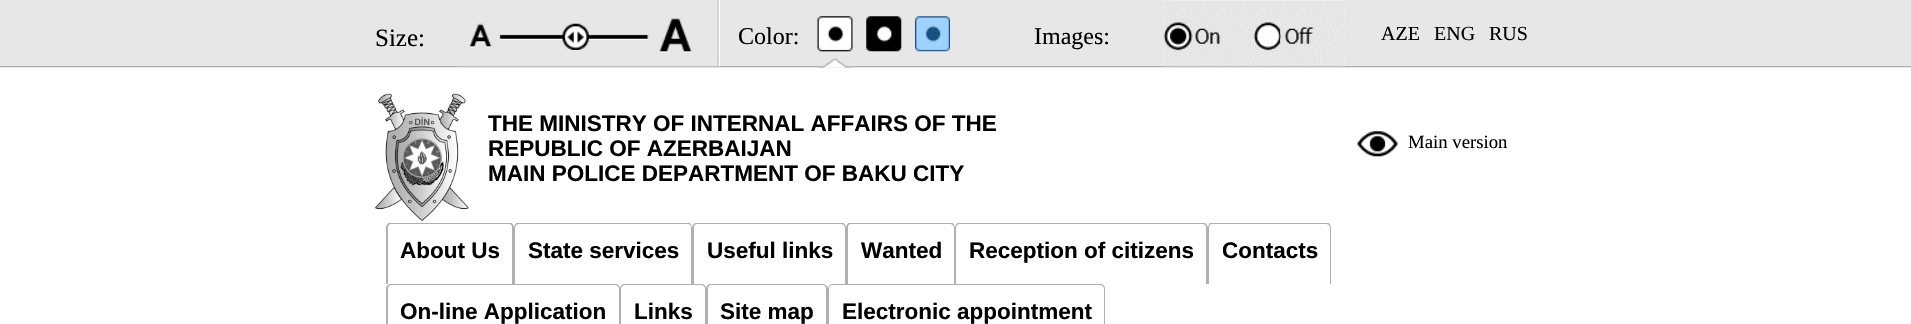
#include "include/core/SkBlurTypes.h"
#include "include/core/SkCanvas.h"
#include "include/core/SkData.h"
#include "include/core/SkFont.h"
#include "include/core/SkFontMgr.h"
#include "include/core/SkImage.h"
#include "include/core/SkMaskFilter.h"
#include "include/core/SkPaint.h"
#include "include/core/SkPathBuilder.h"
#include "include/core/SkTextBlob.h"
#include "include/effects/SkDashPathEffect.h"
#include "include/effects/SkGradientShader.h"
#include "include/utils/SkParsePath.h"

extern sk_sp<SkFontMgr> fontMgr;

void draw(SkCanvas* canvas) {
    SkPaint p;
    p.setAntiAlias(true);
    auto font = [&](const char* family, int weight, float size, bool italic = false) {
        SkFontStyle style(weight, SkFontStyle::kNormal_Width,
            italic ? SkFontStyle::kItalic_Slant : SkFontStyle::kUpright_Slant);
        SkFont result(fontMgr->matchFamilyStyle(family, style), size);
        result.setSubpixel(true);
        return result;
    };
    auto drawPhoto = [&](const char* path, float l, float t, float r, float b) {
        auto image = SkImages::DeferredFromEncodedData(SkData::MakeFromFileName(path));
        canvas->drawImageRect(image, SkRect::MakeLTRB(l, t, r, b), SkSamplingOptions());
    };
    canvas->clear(0xFFFFFFFF);
    p.setColor(0xFFE7E7E7);
    canvas->drawRect(SkRect::MakeLTRB(0, 0, 1911, 68), p);
    p.setColor(0xFFAEAEAE);
    canvas->drawRect(SkRect::MakeLTRB(0, 66, 1911, 67), p);
    drawPhoto("media/1.png", 457, 0, 720, 67);
    auto font1 = font("Liberation Serif", 400, 25);
    p.setColor(0xFF000000);
    canvas->drawString("Size:", 375, 46, font1, p);
    drawPhoto("media/2.png", 562, 23, 589, 50);
    auto font2 = font("Liberation Serif", 400, 24);
    canvas->drawString("Color:", 738, 44, font2, p);
    drawPhoto("media/3.png", 817, 16, 853, 68);
    drawPhoto("media/4.png", 866, 16, 902, 52);
    drawPhoto("media/5.png", 915, 16, 950, 52);
    canvas->drawString("Images:", 1034, 44, font2, p);
    drawPhoto("media/6.png", 1163, 0, 1345, 67);
    auto font3 = font("Liberation Serif", 400, 20);
    {
        const struct { const char* s; float x, y; } items[] = {
            {"AZE", 1381, 40},
            {"ENG", 1434, 40},
            {"RUS", 1489, 40},
        };
        for (auto [s, x, y] : items) {
            canvas->drawString(s, x, y, font3, p);
        }
    }
    drawPhoto("media/7.png", 375, 93, 469, 222);
    auto font4 = font("Liberation Sans", 700, 22.5f);
    {
        const struct { const char* s; float x, y; } items[] = {
            {"THE MINISTRY OF INTERNAL AFFAIRS OF THE", 488, 131},
            {"REPUBLIC OF AZERBAIJAN", 488, 156},
            {"MAIN POLICE DEPARTMENT OF BAKU CITY", 488, 181},
        };
        for (auto [s, x, y] : items) {
            canvas->drawString(s, x, y, font4, p);
        }
    }
    drawPhoto("media/8.png", 1357, 130, 1398, 157);
    auto font5 = font("Liberation Serif", 400, 18.75f);
    canvas->drawString("Main version", 1408, 148, font5, p);
    canvas->save();
    canvas->clipRect(SkRect::MakeLTRB(375, 223, 1536, 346));
    p.setColor(0xFFB0B0B0);
    canvas->drawPath(SkPathBuilder(SkPathFillType::kEvenOdd).moveTo(391, 222).lineTo(509, 222).cubicTo(512, 222, 514, 225, 514, 228).lineTo(514, 284).lineTo(386, 284).lineTo(386, 228).cubicTo(386, 225, 388, 222, 391, 222).close().moveTo(391, 224).lineTo(509, 224).cubicTo(511, 224, 512, 225, 512, 228).lineTo(512, 284).lineTo(388, 284).lineTo(388, 228).cubicTo(388, 225, 389, 224, 391, 224).close().detach(), p);
    canvas->restore();
    p.setColor(0xFF000000);
    canvas->drawString("About Us", 400, 258, font4, p);
    canvas->save();
    canvas->clipRect(SkRect::MakeLTRB(375, 223, 1536, 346));
    p.setColor(0xFFB0B0B0);
    canvas->drawPath(SkPathBuilder(SkPathFillType::kEvenOdd).moveTo(519, 222).lineTo(688, 222).cubicTo(690, 222, 692, 225, 692, 228).lineTo(692, 284).lineTo(514, 284).lineTo(514, 228).cubicTo(514, 225, 516, 222, 519, 222).close().moveTo(519, 224).lineTo(688, 224).cubicTo(690, 224, 691, 225, 691, 228).lineTo(691, 284).lineTo(515, 284).lineTo(515, 228).cubicTo(515, 225, 517, 224, 519, 224).close().detach(), p);
    canvas->restore();
    p.setColor(0xFF000000);
    canvas->drawString("State services", 528, 258, font4, p);
    canvas->save();
    canvas->clipRect(SkRect::MakeLTRB(375, 223, 1536, 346));
    p.setColor(0xFFB0B0B0);
    canvas->drawPath(SkPathBuilder(SkPathFillType::kEvenOdd).moveTo(698, 222).lineTo(841, 222).cubicTo(844, 222, 846, 225, 846, 228).lineTo(846, 284).lineTo(692, 284).lineTo(692, 228).cubicTo(692, 225, 695, 222, 698, 222).close().moveTo(698, 224).lineTo(841, 224).cubicTo(843, 224, 845, 225, 845, 228).lineTo(845, 284).lineTo(694, 284).lineTo(694, 228).cubicTo(694, 225, 695, 224, 698, 224).close().detach(), p);
    canvas->restore();
    p.setColor(0xFF000000);
    canvas->drawString("Useful links", 707, 258, font4, p);
    canvas->save();
    canvas->clipRect(SkRect::MakeLTRB(375, 223, 1536, 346));
    p.setColor(0xFFB0B0B0);
    canvas->drawPath(SkPathBuilder(SkPathFillType::kEvenOdd).moveTo(851, 222).lineTo(950, 222).cubicTo(953, 222, 955, 225, 955, 228).lineTo(955, 284).lineTo(846, 284).lineTo(846, 228).cubicTo(846, 225, 848, 222, 851, 222).close().moveTo(851, 224).lineTo(950, 224).cubicTo(952, 224, 954, 225, 954, 228).lineTo(954, 284).lineTo(848, 284).lineTo(848, 228).cubicTo(848, 225, 849, 224, 851, 224).close().detach(), p);
    canvas->restore();
    p.setColor(0xFF000000);
    canvas->drawString("Wanted", 861, 258, font4, p);
    canvas->save();
    canvas->clipRect(SkRect::MakeLTRB(375, 223, 1536, 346));
    p.setColor(0xFFB0B0B0);
    canvas->drawPath(SkPathBuilder(SkPathFillType::kEvenOdd).moveTo(960, 222).lineTo(1202, 222).cubicTo(1205, 222, 1208, 225, 1208, 228).lineTo(1208, 284).lineTo(955, 284).lineTo(955, 228).cubicTo(955, 225, 957, 222, 960, 222).close().moveTo(960, 224).lineTo(1202, 224).cubicTo(1205, 224, 1206, 225, 1206, 228).lineTo(1206, 284).lineTo(956, 284).lineTo(956, 228).cubicTo(956, 225, 958, 224, 960, 224).close().detach(), p);
    canvas->restore();
    p.setColor(0xFF000000);
    canvas->drawString("Reception of citizens", 969, 258, font4, p);
    canvas->save();
    canvas->clipRect(SkRect::MakeLTRB(375, 223, 1536, 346));
    p.setColor(0xFFB0B0B0);
    canvas->drawPath(SkPathBuilder(SkPathFillType::kEvenOdd).moveTo(1212, 222).lineTo(1326, 222).cubicTo(1329, 222, 1331, 225, 1331, 228).lineTo(1331, 284).lineTo(1208, 284).lineTo(1208, 228).cubicTo(1208, 225, 1210, 222, 1212, 222).close().moveTo(1212, 224).lineTo(1326, 224).cubicTo(1328, 224, 1330, 225, 1330, 228).lineTo(1330, 284).lineTo(1209, 284).lineTo(1209, 228).cubicTo(1209, 225, 1210, 224, 1212, 224).close().detach(), p);
    canvas->restore();
    p.setColor(0xFF000000);
    canvas->drawString("Contacts", 1222, 258, font4, p);
    p.setColor(0xFFB0B0B0);
    canvas->drawPath(SkPathBuilder(SkPathFillType::kEvenOdd).moveTo(391, 284).lineTo(615, 284).cubicTo(618, 284, 620, 286, 620, 289).lineTo(620, 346).lineTo(386, 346).lineTo(386, 289).cubicTo(386, 286, 388, 284, 391, 284).close().moveTo(391, 285).lineTo(615, 285).cubicTo(617, 285, 619, 287, 619, 289).lineTo(619, 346).lineTo(388, 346).lineTo(388, 289).cubicTo(388, 287, 389, 285, 391, 285).close().detach(), p);
    p.setColor(0xFF000000);
    canvas->drawString("On-line Application", 400, 319, font4, p);
    p.setColor(0xFFB0B0B0);
    canvas->drawPath(SkPathBuilder(SkPathFillType::kEvenOdd).moveTo(625, 284).lineTo(701, 284).cubicTo(704, 284, 706, 286, 706, 289).lineTo(706, 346).lineTo(620, 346).lineTo(620, 289).cubicTo(620, 286, 622, 284, 625, 284).close().moveTo(625, 285).lineTo(701, 285).cubicTo(703, 285, 705, 287, 705, 289).lineTo(705, 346).lineTo(621, 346).lineTo(621, 289).cubicTo(621, 287, 623, 285, 625, 285).close().detach(), p);
    p.setColor(0xFF000000);
    canvas->drawString("Links", 634, 319, font4, p);
    p.setColor(0xFFB0B0B0);
    canvas->drawPath(SkPathBuilder(SkPathFillType::kEvenOdd).moveTo(711, 284).lineTo(822, 284).cubicTo(825, 284, 828, 286, 828, 289).lineTo(828, 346).lineTo(706, 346).lineTo(706, 289).cubicTo(706, 286, 708, 284, 711, 284).close().moveTo(711, 285).lineTo(822, 285).cubicTo(825, 285, 826, 287, 826, 289).lineTo(826, 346).lineTo(708, 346).lineTo(708, 289).cubicTo(708, 287, 709, 285, 711, 285).close().detach(), p);
    p.setColor(0xFF000000);
    canvas->drawString("Site map", 720, 319, font4, p);
    p.setColor(0xFFB0B0B0);
    canvas->drawPath(SkPathBuilder(SkPathFillType::kEvenOdd).moveTo(832, 284).lineTo(1100, 284).cubicTo(1103, 284, 1105, 286, 1105, 289).lineTo(1105, 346).lineTo(828, 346).lineTo(828, 289).cubicTo(828, 286, 830, 284, 832, 284).close().moveTo(832, 285).lineTo(1100, 285).cubicTo(1102, 285, 1104, 287, 1104, 289).lineTo(1104, 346).lineTo(829, 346).lineTo(829, 289).cubicTo(829, 287, 830, 285, 832, 285).close().detach(), p);
    p.setColor(0xFF000000);
    canvas->drawString("Electronic appointment", 842, 319, font4, p);
}
